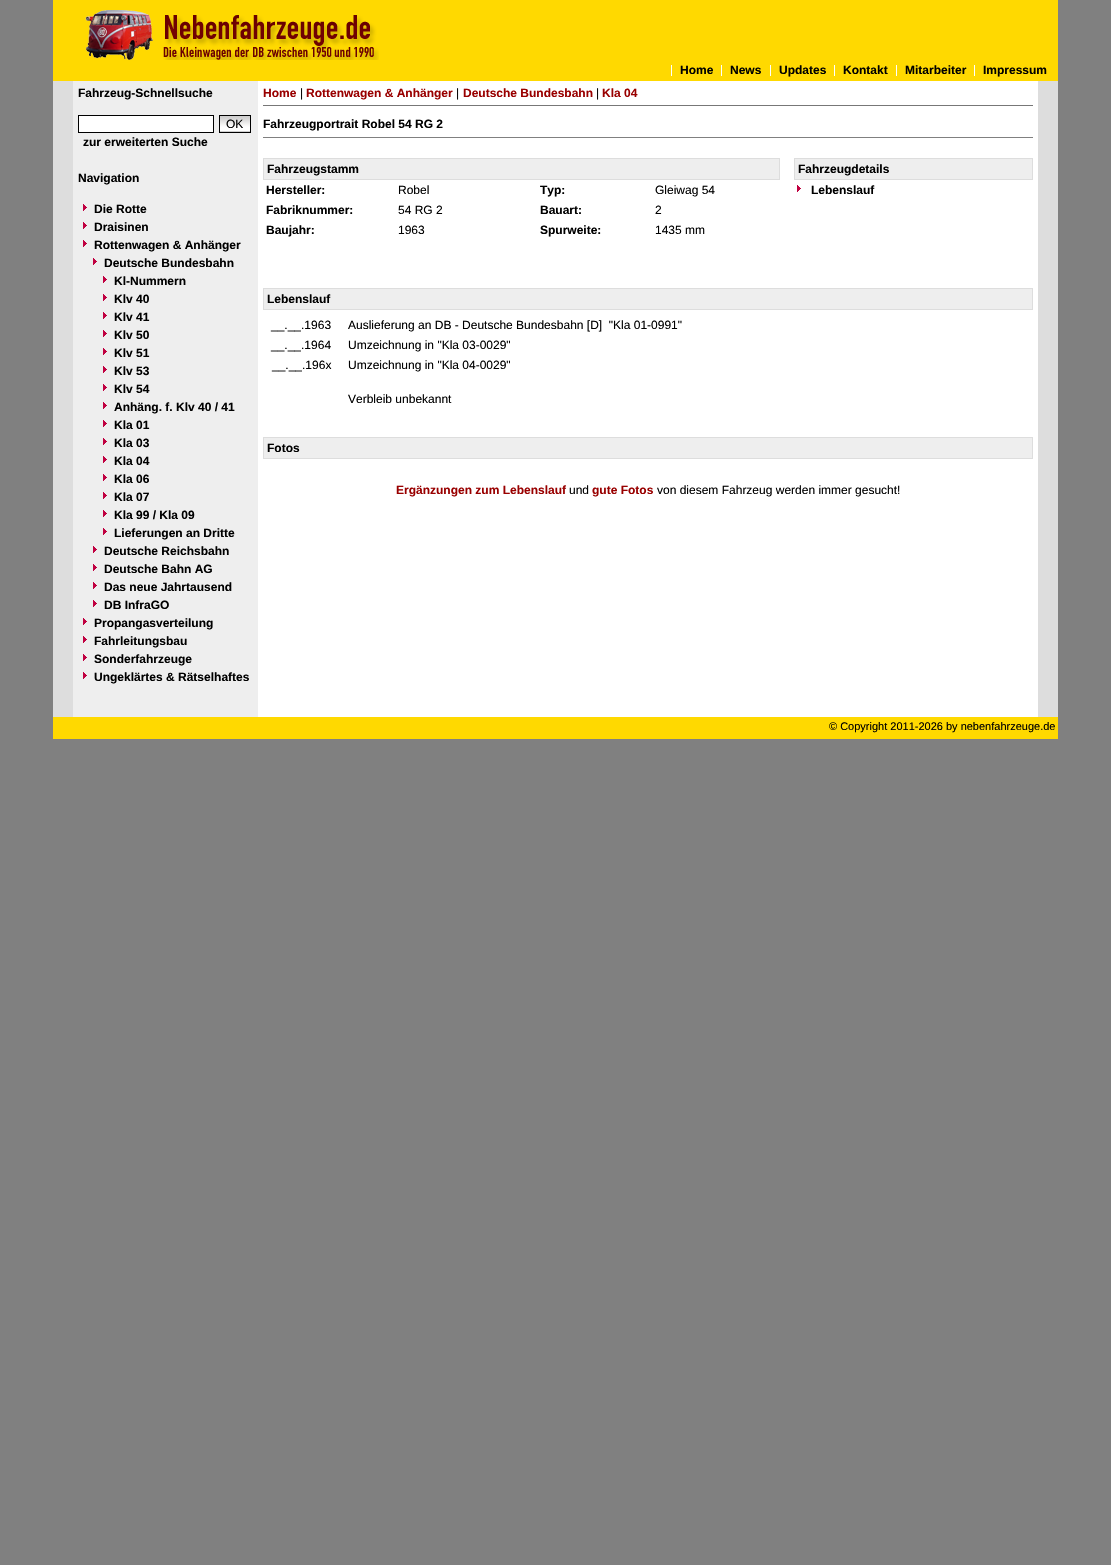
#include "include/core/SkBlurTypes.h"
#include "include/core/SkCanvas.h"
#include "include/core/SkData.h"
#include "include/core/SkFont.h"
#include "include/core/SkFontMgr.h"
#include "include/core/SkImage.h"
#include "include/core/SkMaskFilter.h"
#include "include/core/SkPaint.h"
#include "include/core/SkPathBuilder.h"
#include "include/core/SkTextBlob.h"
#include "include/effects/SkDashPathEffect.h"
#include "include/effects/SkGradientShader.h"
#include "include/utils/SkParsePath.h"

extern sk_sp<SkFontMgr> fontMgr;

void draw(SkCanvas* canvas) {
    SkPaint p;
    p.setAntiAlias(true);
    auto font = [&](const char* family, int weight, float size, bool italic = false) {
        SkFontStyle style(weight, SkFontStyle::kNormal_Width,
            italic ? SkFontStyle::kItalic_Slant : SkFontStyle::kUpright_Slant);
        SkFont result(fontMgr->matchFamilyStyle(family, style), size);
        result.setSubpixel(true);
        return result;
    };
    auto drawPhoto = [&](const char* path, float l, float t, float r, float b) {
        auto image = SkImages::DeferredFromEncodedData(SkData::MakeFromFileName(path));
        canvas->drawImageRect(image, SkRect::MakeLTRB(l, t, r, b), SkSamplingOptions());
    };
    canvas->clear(0xFF808080);
    drawPhoto("media/1.png", 53, 81, 1058, 717);
    p.setColor(0xFFFFD900);
    canvas->drawRect(SkRect::MakeLTRB(53, 0, 1058, 81), p);
    drawPhoto("media/2.png", 85, 10, 379, 60);
    auto font1 = font("Liberation Sans", 700, 12);
    p.setColor(0xFF000000);
    canvas->drawString("Home", 680, 74, font1, p);
    p.setColor(0xFFFFFFFF);
    canvas->drawRect(SkRect::MakeLTRB(671, 65, 672, 76), p);
    p.setColor(0xFF000000);
    canvas->drawString("News", 730, 74, font1, p);
    p.setColor(0xFFFFFFFF);
    canvas->drawRect(SkRect::MakeLTRB(721, 65, 722, 76), p);
    p.setColor(0xFF000000);
    canvas->drawString("Updates", 779, 74, font1, p);
    p.setColor(0xFFFFFFFF);
    canvas->drawRect(SkRect::MakeLTRB(770, 65, 771, 76), p);
    p.setColor(0xFF000000);
    canvas->drawString("Kontakt", 843, 74, font1, p);
    p.setColor(0xFFFFFFFF);
    canvas->drawRect(SkRect::MakeLTRB(834, 65, 835, 76), p);
    p.setColor(0xFF000000);
    canvas->drawString("Mitarbeiter", 905, 74, font1, p);
    p.setColor(0xFFFFFFFF);
    canvas->drawRect(SkRect::MakeLTRB(896, 65, 897, 76), p);
    p.setColor(0xFF000000);
    canvas->drawString("Impressum", 983, 74, font1, p);
    p.setColor(0xFFFFFFFF);
    canvas->drawRect(SkRect::MakeLTRB(974, 65, 975, 76), p);
    p.setColor(0xFF000000);
    canvas->drawString("Fahrzeug-Schnellsuche", 78, 97, font1, p);
    p.setColor(0xFFFFFFFF);
    canvas->drawRect(SkRect::MakeLTRB(78.5f, 115.5f, 213.5f, 132.5f), p);
    p.setStyle(SkPaint::kStroke_Style);
    p.setStrokeWidth(1);
    p.setColor(0xFF000000);
    canvas->drawRect(SkRect::MakeLTRB(78.5f, 115.5f, 213.5f, 132.5f), p);
    drawPhoto("media/3.png", 220, 116, 250, 132);
    canvas->drawRect(SkRect::MakeLTRB(219.5f, 115.5f, 250.5f, 132.5f), p);
    auto font2 = font("Liberation Sans", 400, 12);
    p.setStyle(SkPaint::kFill_Style);
    canvas->drawString("OK", 226, 128, font2, p);
    canvas->drawString("zur erweiterten Suche", 83, 146, font1, p);
    canvas->drawString("Navigation", 78, 182, font1, p);
    drawPhoto("media/4.png", 83, 204, 87, 211);
    canvas->drawString("Die Rotte", 94, 213, font1, p);
    drawPhoto("media/4.png", 83, 222, 87, 229);
    canvas->drawString("Draisinen", 94, 231, font1, p);
    drawPhoto("media/4.png", 83, 240, 87, 247);
    canvas->drawString("Rottenwagen & Anhänger", 94, 249, font1, p);
    drawPhoto("media/4.png", 93, 258, 97, 265);
    canvas->drawString("Deutsche Bundesbahn", 104, 267, font1, p);
    drawPhoto("media/4.png", 103, 276, 107, 283);
    canvas->drawString("Kl-Nummern", 114, 285, font1, p);
    drawPhoto("media/4.png", 103, 294, 107, 301);
    canvas->drawString("Klv 40", 114, 303, font1, p);
    drawPhoto("media/4.png", 103, 312, 107, 319);
    canvas->drawString("Klv 41", 114, 321, font1, p);
    drawPhoto("media/4.png", 103, 330, 107, 337);
    canvas->drawString("Klv 50", 114, 339, font1, p);
    drawPhoto("media/4.png", 103, 348, 107, 355);
    canvas->drawString("Klv 51", 114, 357, font1, p);
    drawPhoto("media/4.png", 103, 366, 107, 373);
    canvas->drawString("Klv 53", 114, 375, font1, p);
    drawPhoto("media/4.png", 103, 384, 107, 391);
    canvas->drawString("Klv 54", 114, 393, font1, p);
    drawPhoto("media/4.png", 103, 402, 107, 409);
    canvas->drawString("Anhäng. f. Klv 40 / 41", 114, 411, font1, p);
    drawPhoto("media/4.png", 103, 420, 107, 427);
    canvas->drawString("Kla 01", 114, 429, font1, p);
    drawPhoto("media/4.png", 103, 438, 107, 445);
    canvas->drawString("Kla 03", 114, 447, font1, p);
    drawPhoto("media/4.png", 103, 456, 107, 463);
    canvas->drawString("Kla 04", 114, 465, font1, p);
    drawPhoto("media/4.png", 103, 474, 107, 481);
    canvas->drawString("Kla 06", 114, 483, font1, p);
    drawPhoto("media/4.png", 103, 492, 107, 499);
    canvas->drawString("Kla 07", 114, 501, font1, p);
    drawPhoto("media/4.png", 103, 510, 107, 517);
    canvas->drawString("Kla 99 / Kla 09", 114, 519, font1, p);
    drawPhoto("media/4.png", 103, 528, 107, 535);
    canvas->drawString("Lieferungen an Dritte", 114, 537, font1, p);
    drawPhoto("media/4.png", 93, 546, 97, 553);
    canvas->drawString("Deutsche Reichsbahn", 104, 555, font1, p);
    drawPhoto("media/4.png", 93, 564, 97, 571);
    canvas->drawString("Deutsche Bahn AG", 104, 573, font1, p);
    drawPhoto("media/4.png", 93, 582, 97, 589);
    canvas->drawString("Das neue Jahrtausend", 104, 591, font1, p);
    drawPhoto("media/4.png", 93, 600, 97, 607);
    canvas->drawString("DB InfraGO", 104, 609, font1, p);
    drawPhoto("media/4.png", 83, 618, 87, 625);
    canvas->drawString("Propangasverteilung", 94, 627, font1, p);
    drawPhoto("media/4.png", 83, 636, 87, 643);
    canvas->drawString("Fahrleitungsbau", 94, 645, font1, p);
    drawPhoto("media/4.png", 83, 654, 87, 661);
    canvas->drawString("Sonderfahrzeuge", 94, 663, font1, p);
    drawPhoto("media/4.png", 83, 672, 87, 679);
    canvas->drawString("Ungeklärtes & Rätselhaftes", 94, 681, font1, p);
    p.setColor(0xFF777777);
    canvas->drawRect(SkRect::MakeLTRB(263, 105, 1033, 106), p);
    p.setColor(0xFF990000);
    canvas->drawString("Home", 263, 97, font1, p);
    p.setColor(0xFF000000);
    canvas->drawString("|", 300, 97, font2, p);
    p.setColor(0xFF990000);
    canvas->drawString("Rottenwagen & Anhänger", 306, 97, font1, p);
    p.setColor(0xFF000000);
    canvas->drawString("|", 456, 97, font2, p);
    p.setColor(0xFF990000);
    canvas->drawString("Deutsche Bundesbahn", 463, 97, font1, p);
    p.setColor(0xFF000000);
    canvas->drawString("|", 596, 97, font2, p);
    p.setColor(0xFF990000);
    canvas->drawString("Kla 04", 602, 97, font1, p);
    p.setColor(0xFF000000);
    canvas->drawString("Fahrzeugportrait Robel 54 RG 2", 263, 128, font1, p);
    p.setColor(0xFF808080);
    canvas->drawRect(SkRect::MakeLTRB(263, 137, 1033, 138), p);
    p.setColor(0xFFEEEEEE);
    canvas->drawRect(SkRect::MakeLTRB(263.5f, 158.5f, 779.5f, 179.5f), p);
    p.setStyle(SkPaint::kStroke_Style);
    p.setColor(0xFFDDDDDD);
    canvas->drawRect(SkRect::MakeLTRB(263.5f, 158.5f, 779.5f, 179.5f), p);
    p.setStyle(SkPaint::kFill_Style);
    p.setColor(0xFF000000);
    canvas->drawString("Fahrzeugstamm", 267, 173, font1, p);
    p.setColor(0xFFEEEEEE);
    canvas->drawRect(SkRect::MakeLTRB(794.5f, 158.5f, 1032.5f, 179.5f), p);
    p.setStyle(SkPaint::kStroke_Style);
    p.setColor(0xFFDDDDDD);
    canvas->drawRect(SkRect::MakeLTRB(794.5f, 158.5f, 1032.5f, 179.5f), p);
    p.setStyle(SkPaint::kFill_Style);
    p.setColor(0xFF000000);
    canvas->drawString("Fahrzeugdetails", 798, 173, font1, p);
    canvas->drawString("Hersteller:", 266, 194, font1, p);
    canvas->drawString("Robel", 398, 194, font2, p);
    canvas->drawString("Typ:", 540, 194, font1, p);
    canvas->drawString("Gleiwag 54", 655, 194, font2, p);
    drawPhoto("media/5.png", 797, 185, 801, 192);
    canvas->drawString("Lebenslauf", 811, 194, font1, p);
    canvas->drawString("Fabriknummer:", 266, 214, font1, p);
    canvas->drawString("54 RG 2", 398, 214, font2, p);
    canvas->drawString("Bauart:", 540, 214, font1, p);
    canvas->drawString("2", 655, 214, font2, p);
    canvas->drawString("Baujahr:", 266, 234, font1, p);
    canvas->drawString("1963", 398, 234, font2, p);
    canvas->drawString("Spurweite:", 540, 234, font1, p);
    canvas->drawString("1435 mm", 655, 234, font2, p);
    p.setColor(0xFFEEEEEE);
    canvas->drawRect(SkRect::MakeLTRB(263.5f, 288.5f, 1032.5f, 309.5f), p);
    p.setStyle(SkPaint::kStroke_Style);
    p.setColor(0xFFDDDDDD);
    canvas->drawRect(SkRect::MakeLTRB(263.5f, 288.5f, 1032.5f, 309.5f), p);
    p.setStyle(SkPaint::kFill_Style);
    p.setColor(0xFF000000);
    canvas->drawString("Lebenslauf", 267, 303, font1, p);
    {
        const struct { const char* s; float x, y; } items[] = {
            {"__.__.1963", 271, 329},
            {"Auslieferung an DB - Deutsche Bundesbahn [D]  \"Kla 01-0991\"", 348, 329},
            {"__.__.1964", 271, 349},
            {"Umzeichnung in \"Kla 03-0029\"", 348, 349},
            {"__.__.196x", 272, 369},
            {"Umzeichnung in \"Kla 04-0029\"", 348, 369},
            {"Verbleib unbekannt", 348, 403},
        };
        for (auto [s, x, y] : items) {
            canvas->drawString(s, x, y, font2, p);
        }
    }
    p.setColor(0xFFEEEEEE);
    canvas->drawRect(SkRect::MakeLTRB(263.5f, 437.5f, 1032.5f, 458.5f), p);
    p.setStyle(SkPaint::kStroke_Style);
    p.setColor(0xFFDDDDDD);
    canvas->drawRect(SkRect::MakeLTRB(263.5f, 437.5f, 1032.5f, 458.5f), p);
    p.setStyle(SkPaint::kFill_Style);
    p.setColor(0xFF000000);
    canvas->drawString("Fotos", 267, 452, font1, p);
    p.setColor(0xFF990000);
    canvas->drawString("Ergänzungen zum Lebenslauf", 396, 494, font1, p);
    p.setColor(0xFF000000);
    canvas->drawString("und", 569, 494, font2, p);
    p.setColor(0xFF990000);
    canvas->drawString("gute Fotos", 592, 494, font1, p);
    p.setColor(0xFF000000);
    canvas->drawString("von diesem Fahrzeug werden immer gesucht!", 657, 494, font2, p);
    p.setColor(0xFFFFD900);
    canvas->drawRect(SkRect::MakeLTRB(53, 717, 1058, 739), p);
    auto font3 = font("Liberation Sans", 400, 11);
    p.setColor(0xFF000000);
    canvas->drawString("© Copyright 2011-2026 by nebenfahrzeuge.de", 829, 730, font3, p);
}
